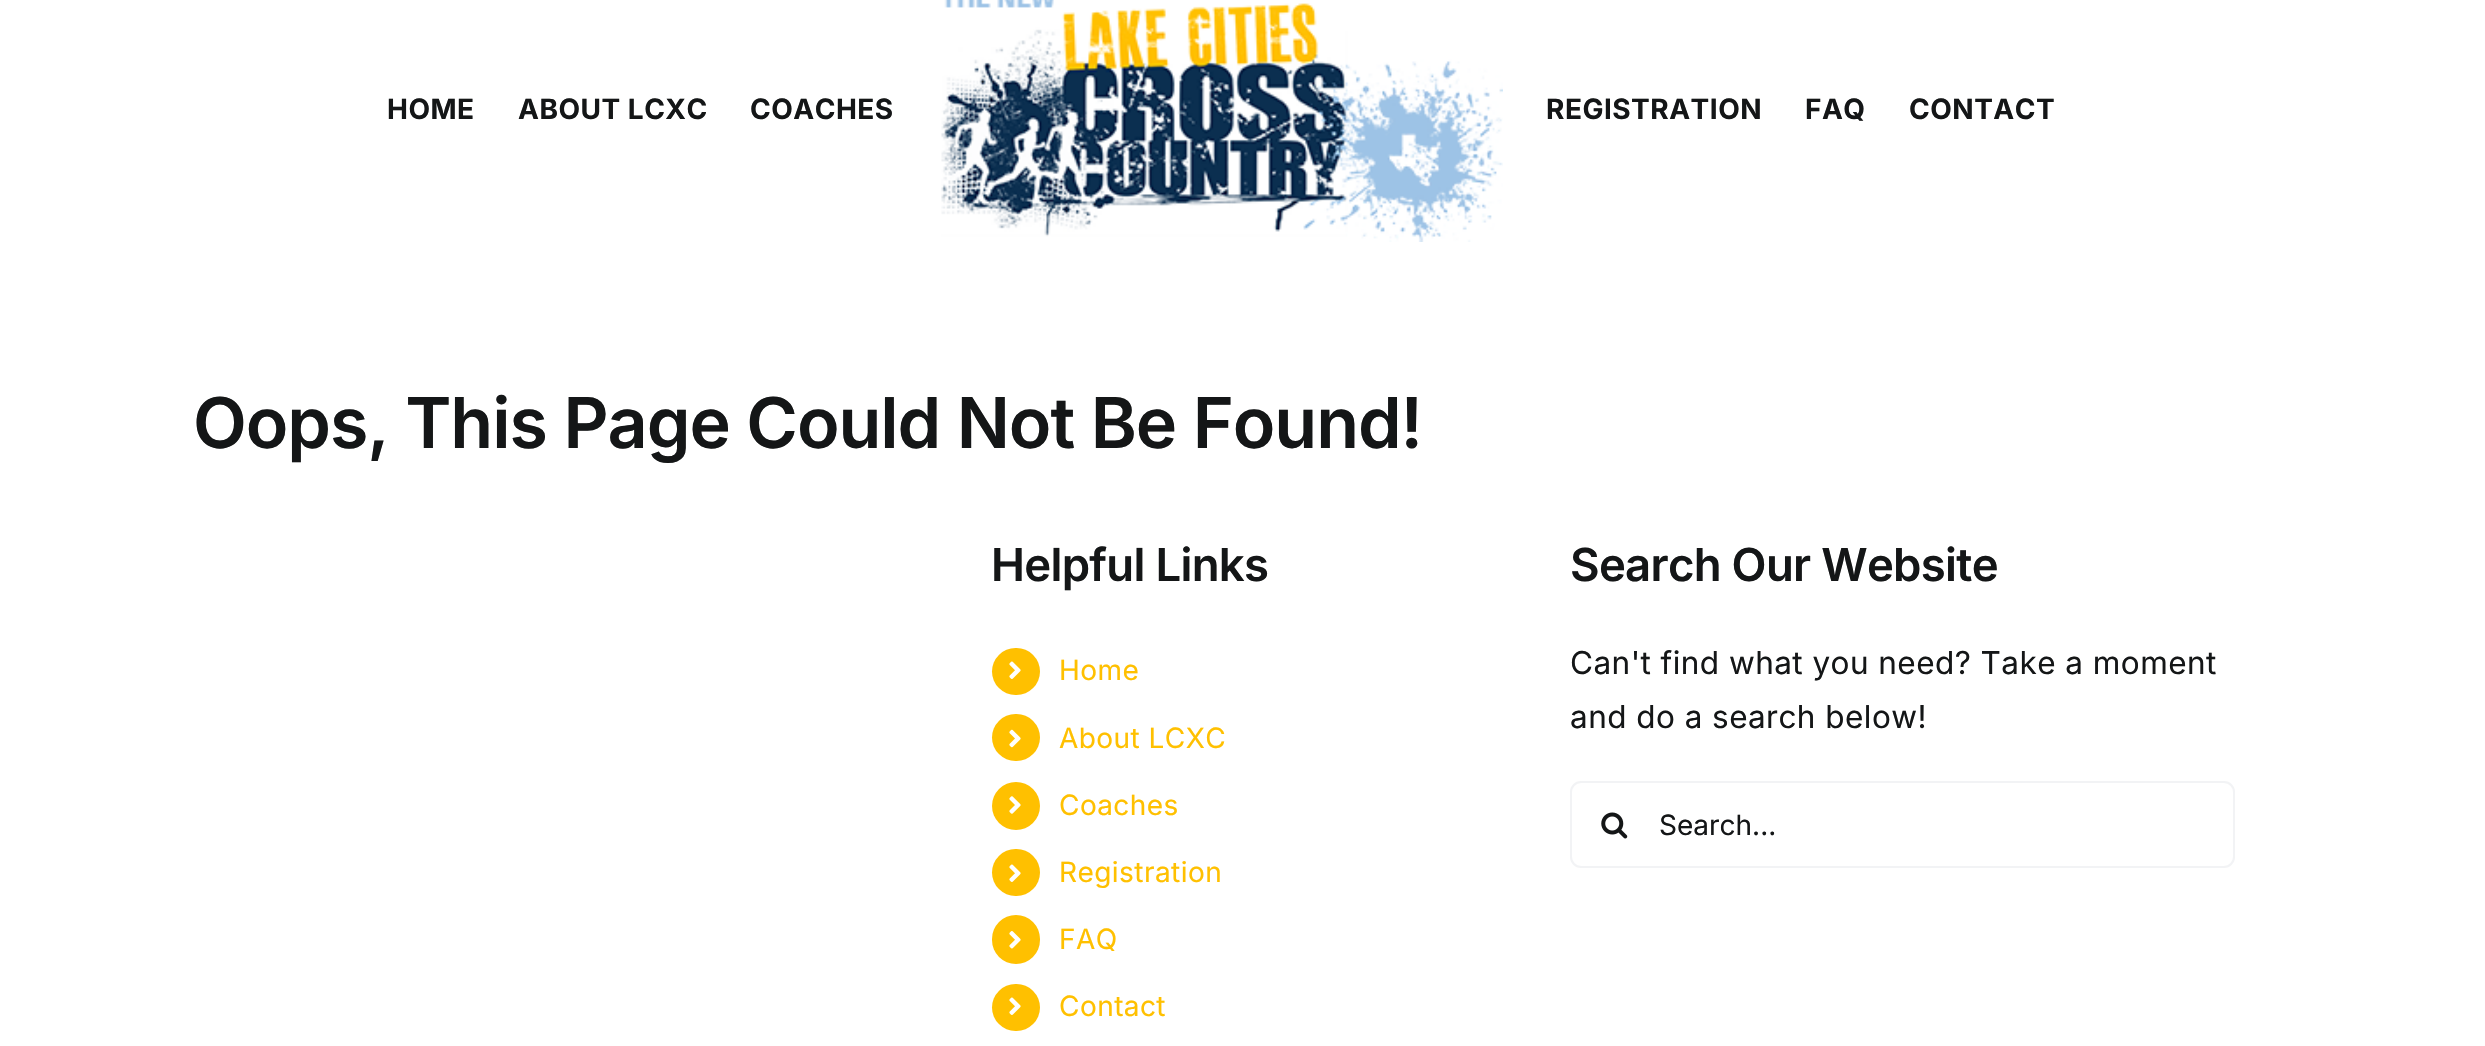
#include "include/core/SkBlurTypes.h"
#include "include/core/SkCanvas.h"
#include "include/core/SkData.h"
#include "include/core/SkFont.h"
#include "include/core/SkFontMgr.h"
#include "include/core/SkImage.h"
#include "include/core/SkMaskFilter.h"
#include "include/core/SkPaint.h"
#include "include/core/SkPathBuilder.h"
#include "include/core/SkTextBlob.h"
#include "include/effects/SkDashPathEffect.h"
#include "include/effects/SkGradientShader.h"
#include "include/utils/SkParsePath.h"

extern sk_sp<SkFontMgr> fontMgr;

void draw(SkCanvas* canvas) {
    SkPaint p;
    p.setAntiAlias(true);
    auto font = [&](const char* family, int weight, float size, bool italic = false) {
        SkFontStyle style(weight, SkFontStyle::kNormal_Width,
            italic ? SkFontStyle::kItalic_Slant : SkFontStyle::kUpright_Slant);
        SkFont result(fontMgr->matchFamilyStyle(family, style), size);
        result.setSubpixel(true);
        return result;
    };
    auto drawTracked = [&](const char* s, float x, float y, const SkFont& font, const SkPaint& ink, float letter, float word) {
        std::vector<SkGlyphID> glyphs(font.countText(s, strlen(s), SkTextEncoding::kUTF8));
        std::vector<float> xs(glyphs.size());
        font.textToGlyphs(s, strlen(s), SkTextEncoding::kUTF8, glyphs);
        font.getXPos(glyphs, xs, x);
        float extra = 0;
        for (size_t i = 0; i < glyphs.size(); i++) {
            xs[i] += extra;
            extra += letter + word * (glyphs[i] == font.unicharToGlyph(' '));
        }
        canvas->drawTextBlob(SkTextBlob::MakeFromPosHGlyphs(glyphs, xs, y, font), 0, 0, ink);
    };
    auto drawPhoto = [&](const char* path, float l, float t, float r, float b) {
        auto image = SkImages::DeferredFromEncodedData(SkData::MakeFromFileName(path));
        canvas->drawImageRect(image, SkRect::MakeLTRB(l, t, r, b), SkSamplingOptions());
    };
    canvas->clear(0xFFFFFFFF);
    auto font1 = font("Inter", 700, 28);
    p.setColor(0xFF141617);
    {
        const struct { const char* s; float x, y; } items[] = {
            {"HOME", 387, 119},
            {"ABOUT LCXC", 518, 119},
            {"COACHES", 750, 119},
        };
        for (auto [s, x, y] : items) {
            drawTracked(s, x, y, font1, p, 0.5f, 0);
        }
    }
    drawPhoto("media/1.png", 941, 0, 1503, 242);
    {
        const struct { const char* s; float x, y; } items[] = {
            {"REGISTRATION", 1546, 119},
            {"FAQ", 1805, 119},
            {"CONTACT", 1909, 119},
        };
        for (auto [s, x, y] : items) {
            drawTracked(s, x, y, font1, p, 0.5f, 0);
        }
    }
    auto font2 = font("Inter", 600, 70);
    drawTracked("Oops, This Page Could Not Be Found!", 193, 448, font2, p, -1.05f, 0);
    auto font3 = font("Inter", 600, 45.5f);
    drawTracked("Helpful Links", 991, 581, font3, p, -0.7f, 0);
    p.setColor(0xFFFFC000);
    canvas->drawRoundRect(SkRect::MakeLTRB(992, 648, 1040, 695), 23.5f, 23.5f, p);
    drawPhoto("media/2.png", 1009, 661, 1021, 679);
    auto font4 = font("Inter", 400, 28);
    drawTracked("Home", 1059, 680, font4, p, 0.45f, 0);
    canvas->drawRoundRect(SkRect::MakeLTRB(992, 714, 1040, 761), 23.5f, 23.5f, p);
    drawPhoto("media/3.png", 1009, 729, 1021, 748);
    drawTracked("About LCXC", 1059, 748, font4, p, 0.45f, 0);
    canvas->drawCircle(1016, 806, 24, p);
    drawPhoto("media/4.png", 1009, 796, 1021, 814);
    drawTracked("Coaches", 1059, 815, font4, p, 0.45f, 0);
    canvas->drawRoundRect(SkRect::MakeLTRB(992, 849, 1040, 896), 23.5f, 23.5f, p);
    drawPhoto("media/2.png", 1009, 864, 1021, 882);
    drawTracked("Registration", 1059, 882, font4, p, 0.45f, 0);
    canvas->drawRoundRect(SkRect::MakeLTRB(992, 915, 1040, 964), 24, 24, p);
    drawPhoto("media/5.png", 1009, 931, 1021, 949);
    drawTracked("FAQ", 1059, 949, font4, p, 0.45f, 0);
    canvas->drawRoundRect(SkRect::MakeLTRB(992, 984, 1040, 1031), 23.5f, 23.5f, p);
    drawPhoto("media/2.png", 1009, 997, 1021, 1015);
    drawTracked("Contact", 1059, 1016, font4, p, 0.45f, 0);
    p.setColor(0xFF141617);
    drawTracked("Search Our Website", 1570, 581, font3, p, -0.7f, 0);
    auto font5 = font("Inter", 400, 31.5f);
    drawTracked("Can't find what you need? Take a moment", 1570, 674, font5, p, 0.45f, 0);
    drawTracked("and do a search below!", 1570, 728, font5, p, 0.45f, 0);
    p.setStyle(SkPaint::kStroke_Style);
    p.setStrokeWidth(2);
    p.setColor(0xFFF2F3F5);
    canvas->drawRoundRect(SkRect::MakeLTRB(1571, 782, 2234, 867), 10, 10, p);
    drawPhoto("media/6.png", 1601, 812, 1628, 839);
    p.setStyle(SkPaint::kFill_Style);
    p.setColor(0xFF141617);
    canvas->drawString("Search...", 1659, 835, font4, p);
}
